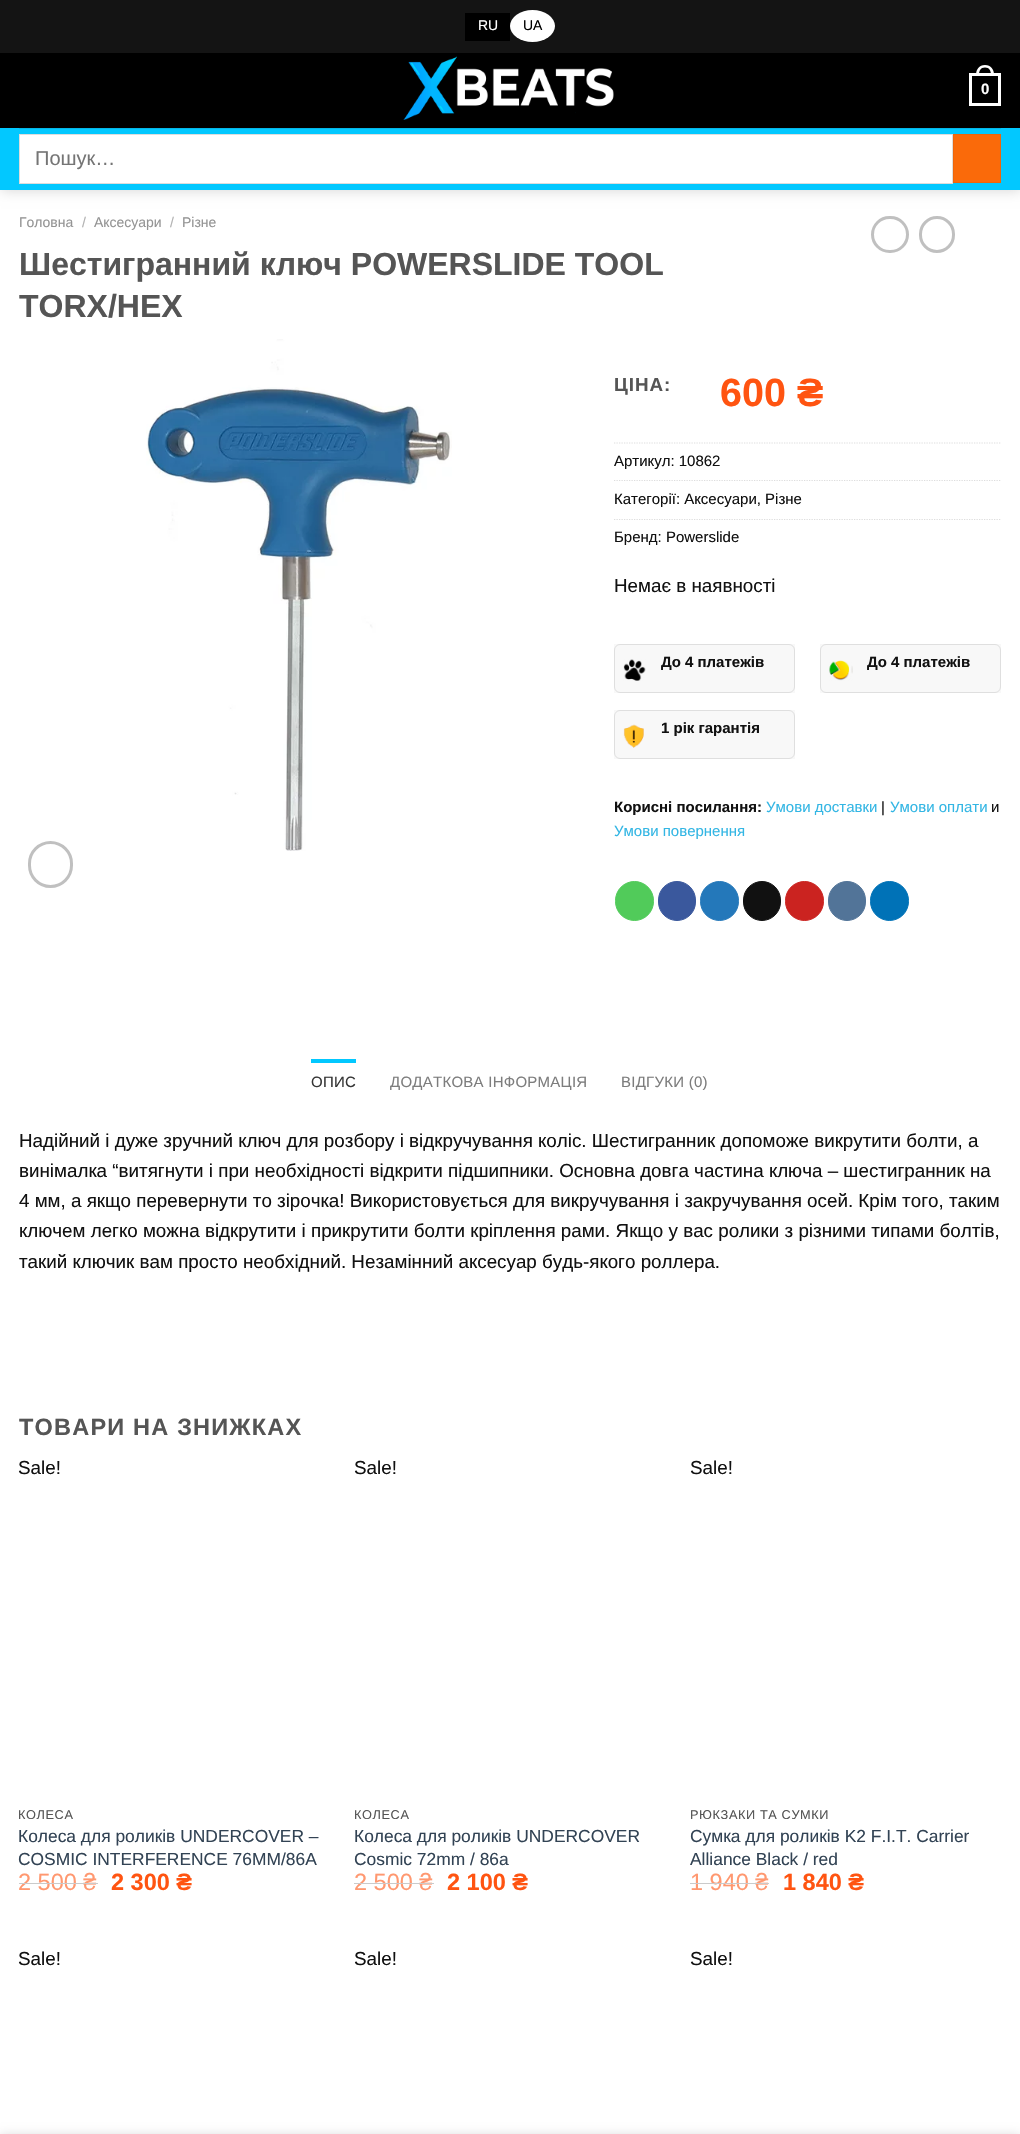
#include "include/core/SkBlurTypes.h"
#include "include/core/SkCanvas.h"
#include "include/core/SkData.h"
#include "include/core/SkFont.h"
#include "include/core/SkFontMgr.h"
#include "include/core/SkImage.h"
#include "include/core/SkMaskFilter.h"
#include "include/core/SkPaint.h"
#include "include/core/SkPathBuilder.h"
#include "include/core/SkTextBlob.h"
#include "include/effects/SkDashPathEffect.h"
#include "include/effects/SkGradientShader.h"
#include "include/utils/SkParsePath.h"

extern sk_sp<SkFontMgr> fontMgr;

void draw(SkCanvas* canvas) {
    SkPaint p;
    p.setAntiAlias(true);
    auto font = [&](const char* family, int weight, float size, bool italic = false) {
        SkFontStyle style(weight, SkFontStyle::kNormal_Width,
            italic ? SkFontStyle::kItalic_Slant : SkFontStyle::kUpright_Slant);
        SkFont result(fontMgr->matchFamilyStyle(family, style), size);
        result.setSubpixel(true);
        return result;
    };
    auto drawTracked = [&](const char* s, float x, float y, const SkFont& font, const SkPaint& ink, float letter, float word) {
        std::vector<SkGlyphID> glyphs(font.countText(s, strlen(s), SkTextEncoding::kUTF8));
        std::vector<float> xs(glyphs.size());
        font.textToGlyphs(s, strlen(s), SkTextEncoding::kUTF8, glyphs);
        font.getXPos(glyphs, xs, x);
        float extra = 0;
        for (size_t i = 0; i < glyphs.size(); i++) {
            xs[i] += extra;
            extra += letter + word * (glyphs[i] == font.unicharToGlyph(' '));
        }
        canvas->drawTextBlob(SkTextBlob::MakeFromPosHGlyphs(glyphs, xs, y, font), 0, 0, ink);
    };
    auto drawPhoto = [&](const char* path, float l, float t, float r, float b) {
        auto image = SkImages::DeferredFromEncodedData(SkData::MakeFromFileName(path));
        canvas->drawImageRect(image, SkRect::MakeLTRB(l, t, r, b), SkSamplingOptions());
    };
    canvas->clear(0xFFFFFFFF);
    p.setColor(0x26000000);
    p.setMaskFilter(SkMaskFilter::MakeBlur(kNormal_SkBlurStyle, 6));
    canvas->drawRect(SkRect::MakeLTRB(1, 1, 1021, 191), p);
    p.setMaskFilter(nullptr);
    p.setColor(0xFF141414);
    canvas->drawRect(SkRect::MakeLTRB(0, 0, 1020, 53), p);
    p.setColor(0xFF000000);
    canvas->drawRect(SkRect::MakeLTRB(465, 13, 510, 41), p);
    auto font1 = font("Liberation Sans", 400, 14);
    p.setColor(0xFFFFFFFF);
    canvas->drawString("RU", 478, 30, font1, p);
    canvas->drawOval(SkRect::MakeLTRB(510, 10, 555, 42), p);
    p.setColor(0xFF000000);
    canvas->drawString("UA", 523, 30, font1, p);
    canvas->drawRect(SkRect::MakeLTRB(0, 53, 1020, 128), p);
    drawPhoto("media/1.png", 403, 56, 614, 120);
    p.setStyle(SkPaint::kStroke_Style);
    p.setStrokeWidth(3);
    p.setColor(0xFFFFFFFF);
    canvas->drawRect(SkRect::MakeLTRB(970.5f, 74.5f, 999.5f, 104.5f), p);
    p.setStyle(SkPaint::kFill_Style);
    canvas->drawPath(SkPathBuilder(SkPathFillType::kEvenOdd).moveTo(985, 65).cubicTo(991, 65, 994, 69.5f, 994, 75).lineTo(976, 75).cubicTo(976, 69.5f, 979, 65, 985, 65).close().moveTo(985, 67.5f).cubicTo(989.5f, 67.5f, 991, 71, 991, 75).lineTo(979, 75).cubicTo(979, 71, 980.5f, 67.5f, 985, 67.5f).close().detach(), p);
    auto font2 = font("Liberation Sans", 700, 15);
    canvas->drawString("0", 981, 94, font2, p);
    p.setColor(0xFF02C8FF);
    canvas->drawRect(SkRect::MakeLTRB(0, 128, 1020, 190), p);
    p.setColor(0xFF04B6E7);
    canvas->drawRect(SkRect::MakeLTRB(19, 128, 1001, 129), p);
    p.setColor(0xFFFFFFFF);
    canvas->drawRect(SkRect::MakeLTRB(19.5f, 134.5f, 952.5f, 183.5f), p);
    p.setStyle(SkPaint::kStroke_Style);
    p.setStrokeWidth(1);
    p.setColor(0xFFDDDDDD);
    canvas->drawRect(SkRect::MakeLTRB(19.5f, 134.5f, 952.5f, 183.5f), p);
    auto font3 = font("Liberation Sans", 400, 20);
    p.setStyle(SkPaint::kFill_Style);
    p.setColor(0xFF757575);
    canvas->drawString("Пошук…", 35, 165, font3, p);
    p.setColor(0xFFFA6A0A);
    canvas->drawRect(SkRect::MakeLTRB(953.5f, 134.5f, 1000.5f, 182.5f), p);
    p.setStyle(SkPaint::kStroke_Style);
    p.setColor(0xFFEE650A);
    canvas->drawRect(SkRect::MakeLTRB(953.5f, 134.5f, 1000.5f, 182.5f), p);
    p.setStyle(SkPaint::kFill_Style);
    p.setColor(0xFF949494);
    canvas->drawString("Головна", 19, 227, font1, p);
    p.setColor(0xFFB2B2B2);
    canvas->drawString("/", 82, 227, font1, p);
    p.setColor(0xFF949494);
    canvas->drawString("Аксесуари", 94, 227, font1, p);
    p.setColor(0xFFB2B2B2);
    canvas->drawString("/", 170, 227, font1, p);
    p.setColor(0xFF949494);
    canvas->drawString("Різне", 182, 227, font1, p);
    auto font4 = font("Liberation Sans", 700, 32);
    p.setColor(0xFF555555);
    canvas->drawString("Шестигранний ключ POWERSLIDE TOOL", 19, 275, font4, p);
    canvas->drawString("TORX/HEX", 19, 317, font4, p);
    p.setStyle(SkPaint::kStroke_Style);
    p.setStrokeWidth(3);
    p.setColor(0xFFC0C0C0);
    canvas->drawRoundRect(SkRect::MakeLTRB(872.5f, 217.5f, 907.5f, 251.5f), 17, 17, p);
    canvas->drawRoundRect(SkRect::MakeLTRB(920.5f, 217.5f, 953.5f, 251.5f), 16.5f, 16.5f, p);
    drawPhoto("media/2.png", 146, 339, 452, 851);
    canvas->drawRoundRect(SkRect::MakeLTRB(29.5f, 842.5f, 71.5f, 886.5f), 21, 21, p);
    auto font5 = font("Liberation Sans", 700, 18.8f);
    p.setStyle(SkPaint::kFill_Style);
    p.setColor(0xFF555555);
    drawTracked("ЦIНА:", 614, 391, font5, p, 1, 0);
    auto font6 = font("Liberation Sans", 700, 39.5f);
    p.setColor(0xFFFF5411);
    canvas->drawString("600 ₴", 720, 406, font6, p);
    p.setStyle(SkPaint::kStroke_Style);
    p.setStrokeWidth(1.2f);
    p.setColor(0xFFDDDDDD);
    p.setPathEffect(SkDashPathEffect::Make({{1.25f, 1.25f}}, 0));
    canvas->drawPath(SkPathBuilder().moveTo(614, 443).lineTo(1001, 443).detach(), p);
    p.setPathEffect(nullptr);
    auto font7 = font("Liberation Sans", 400, 15);
    p.setStyle(SkPaint::kFill_Style);
    p.setColor(0xFF111111);
    canvas->drawString("Артикул: 10862", 614, 466, font7, p);
    p.setStyle(SkPaint::kStroke_Style);
    p.setColor(0xFFDDDDDD);
    p.setPathEffect(SkDashPathEffect::Make({{1.25f, 1.25f}}, 0));
    canvas->drawPath(SkPathBuilder().moveTo(614, 480.5f).lineTo(1001, 480.5f).detach(), p);
    p.setPathEffect(nullptr);
    p.setStyle(SkPaint::kFill_Style);
    p.setColor(0xFF111111);
    canvas->drawString("Категорії: Аксесуари, Різне", 614, 504, font7, p);
    p.setStyle(SkPaint::kStroke_Style);
    p.setColor(0xFFDDDDDD);
    p.setPathEffect(SkDashPathEffect::Make({{1.25f, 1.25f}}, 0));
    canvas->drawPath(SkPathBuilder().moveTo(614, 519.5f).lineTo(1001, 519.5f).detach(), p);
    p.setPathEffect(nullptr);
    p.setStyle(SkPaint::kFill_Style);
    p.setColor(0xFF111111);
    canvas->drawString("Бренд: Powerslide", 614, 542, font7, p);
    auto font8 = font("Liberation Sans", 400, 18.8f);
    canvas->drawString("Немає в наявності", 614, 592, font8, p);
    p.setColor(0xFFF8F8F8);
    canvas->drawRect(SkRect::MakeLTRB(614, 644, 795, 693), p);
    p.setStyle(SkPaint::kStroke_Style);
    p.setStrokeWidth(1);
    p.setColor(0xFFDFDFDF);
    canvas->drawRoundRect(SkRect::MakeLTRB(614.5f, 644.5f, 794.5f, 692.5f), 5.5f, 5.5f, p);
    drawPhoto("media/3.png", 623, 659, 646, 681);
    p.setStyle(SkPaint::kFill_Style);
    p.setColor(0xFF111111);
    canvas->drawString("До 4 платежів", 661, 667, font2, p);
    p.setColor(0xFFF8F8F8);
    canvas->drawRect(SkRect::MakeLTRB(820, 644, 1001, 693), p);
    p.setStyle(SkPaint::kStroke_Style);
    p.setColor(0xFFDFDFDF);
    canvas->drawRoundRect(SkRect::MakeLTRB(820.5f, 644.5f, 1000.5f, 692.5f), 5.5f, 5.5f, p);
    drawPhoto("media/4.png", 829, 660, 853, 681);
    p.setStyle(SkPaint::kFill_Style);
    p.setColor(0xFF111111);
    canvas->drawString("До 4 платежів", 867, 667, font2, p);
    p.setColor(0xFFF8F8F8);
    canvas->drawRect(SkRect::MakeLTRB(614, 710, 795, 759), p);
    p.setStyle(SkPaint::kStroke_Style);
    p.setColor(0xFFDFDFDF);
    canvas->drawRoundRect(SkRect::MakeLTRB(614.5f, 710.5f, 794.5f, 758.5f), 5.5f, 5.5f, p);
    drawPhoto("media/5.png", 623, 724, 644, 748);
    p.setStyle(SkPaint::kFill_Style);
    p.setColor(0xFF111111);
    canvas->drawString("1 рік гарантія", 661, 733, font2, p);
    canvas->drawString("Корисні посилання:", 614, 812, font2, p);
    p.setColor(0xFF33B6E4);
    canvas->drawString("Умови доставки", 766, 812, font7, p);
    p.setColor(0xFF111111);
    canvas->drawString("|", 881, 812, font7, p);
    p.setColor(0xFF33B6E4);
    canvas->drawString("Умови оплати", 890, 812, font7, p);
    p.setColor(0xFF111111);
    canvas->drawString("и", 991, 812, font7, p);
    p.setColor(0xFF33B6E4);
    canvas->drawString("Умови повернення", 614, 836, font7, p);
    p.setColor(0xFF51CB5A);
    canvas->drawRoundRect(SkRect::MakeLTRB(615.5f, 881.5f, 653.5f, 920.5f), 19, 19, p);
    p.setStyle(SkPaint::kStroke_Style);
    canvas->drawRoundRect(SkRect::MakeLTRB(615.5f, 881.5f, 653.5f, 920.5f), 19, 19, p);
    p.setStyle(SkPaint::kFill_Style);
    p.setColor(0xFF3A589D);
    canvas->drawRoundRect(SkRect::MakeLTRB(658.5f, 881.5f, 695.5f, 920.5f), 18.5f, 18.5f, p);
    p.setStyle(SkPaint::kStroke_Style);
    canvas->drawRoundRect(SkRect::MakeLTRB(658.5f, 881.5f, 695.5f, 920.5f), 18.5f, 18.5f, p);
    p.setStyle(SkPaint::kFill_Style);
    p.setColor(0xFF2478BA);
    canvas->drawRoundRect(SkRect::MakeLTRB(700.5f, 881.5f, 738.5f, 920.5f), 19, 19, p);
    p.setStyle(SkPaint::kStroke_Style);
    canvas->drawRoundRect(SkRect::MakeLTRB(700.5f, 881.5f, 738.5f, 920.5f), 19, 19, p);
    p.setStyle(SkPaint::kFill_Style);
    p.setColor(0xFF111111);
    canvas->drawRoundRect(SkRect::MakeLTRB(743.5f, 881.5f, 780.5f, 920.5f), 18.5f, 18.5f, p);
    p.setStyle(SkPaint::kStroke_Style);
    canvas->drawRoundRect(SkRect::MakeLTRB(743.5f, 881.5f, 780.5f, 920.5f), 18.5f, 18.5f, p);
    p.setStyle(SkPaint::kFill_Style);
    p.setColor(0xFFCB2320);
    canvas->drawRoundRect(SkRect::MakeLTRB(785.5f, 881.5f, 823.5f, 920.5f), 19, 19, p);
    p.setStyle(SkPaint::kStroke_Style);
    canvas->drawRoundRect(SkRect::MakeLTRB(785.5f, 881.5f, 823.5f, 920.5f), 19, 19, p);
    p.setStyle(SkPaint::kFill_Style);
    p.setColor(0xFF527498);
    canvas->drawRoundRect(SkRect::MakeLTRB(828.5f, 881.5f, 865.5f, 920.5f), 18.5f, 18.5f, p);
    p.setStyle(SkPaint::kStroke_Style);
    canvas->drawRoundRect(SkRect::MakeLTRB(828.5f, 881.5f, 865.5f, 920.5f), 18.5f, 18.5f, p);
    p.setStyle(SkPaint::kFill_Style);
    p.setColor(0xFF0072B7);
    canvas->drawRoundRect(SkRect::MakeLTRB(870.5f, 881.5f, 908.5f, 920.5f), 19, 19, p);
    p.setStyle(SkPaint::kStroke_Style);
    canvas->drawRoundRect(SkRect::MakeLTRB(870.5f, 881.5f, 908.5f, 920.5f), 19, 19, p);
    p.setStyle(SkPaint::kFill_Style);
    p.setColor(0xFF02C8FF);
    canvas->drawRect(SkRect::MakeLTRB(311, 1059, 356, 1063), p);
    p.setColor(0xFF363636);
    drawTracked("ОПИС", 311, 1087, font7, p, 0.25f, 0);
    p.setColor(0xFF7D7D7D);
    drawTracked("ДОДАТКОВА ІНФОРМАЦІЯ", 390, 1087, font7, p, 0.25f, 0);
    drawTracked("ВІДГУКИ (0)", 621, 1087, font7, p, 0.25f, 0);
    p.setColor(0xFF111111);
    {
        const struct { const char* s; float x, y; } items[] = {
            {"Надійний і дуже зручний ключ для розбору і відкручування коліс. Шестигранник допоможе викрутити болти, а", 19, 1147},
            {"винімалка “витягнути і при необхідності відкрити підшипники. Основна довга частина ключа – шестигранник на", 19, 1177},
            {"4 мм, а якщо перевернути то зірочка! Використовується для викручування і закручування осей. Крім того, таким", 19, 1207},
            {"ключем легко можна відкрутити і прикрутити болти кріплення рами. Якщо у вас ролики з різними типами болтів,", 19, 1237},
            {"такий ключик вам просто необхідний. Незамінний аксесуар будь-якого роллера.", 19, 1268},
        };
        for (auto [s, x, y] : items) {
            canvas->drawString(s, x, y, font8, p);
        }
    }
    auto font9 = font("Liberation Sans", 700, 23.5f);
    p.setColor(0xFF555555);
    drawTracked("ТОВАРИ НА ЗНИЖКАХ", 19, 1435, font9, p, 1.2f, 0);
    p.setColor(0xFF111111);
    canvas->drawString("Sale!", 18, 1474, font8, p);
    auto font10 = font("Liberation Sans", 400, 12.75f);
    p.setColor(0xFF555555);
    drawTracked("КОЛЕСА", 18, 1819, font10, p, 0.6f, 0);
    auto font11 = font("Liberation Sans", 400, 17.4f);
    p.setColor(0xFF324354);
    canvas->drawString("Колеса для роликів UNDERCOVER –", 18, 1842, font11, p);
    canvas->drawString("COSMIC INTERFERENCE 76MM/86A", 18, 1865, font11, p);
    auto font12 = font("Liberation Sans", 400, 23.5f);
    p.setColor(0xFFFF9870);
    canvas->drawString("2 500 ₴", 18, 1890, font12, p);
    p.setColor(0xFFCACACA);
    canvas->drawRect(SkRect::MakeLTRB(19, 1883, 98, 1884), p);
    p.setColor(0xFFFF5411);
    canvas->drawString("2 300 ₴", 111, 1890, font9, p);
    p.setColor(0xFF111111);
    canvas->drawString("Sale!", 354, 1474, font8, p);
    p.setColor(0xFF555555);
    drawTracked("КОЛЕСА", 354, 1819, font10, p, 0.6f, 0);
    p.setColor(0xFF324354);
    canvas->drawString("Колеса для роликів UNDERCOVER", 354, 1842, font11, p);
    canvas->drawString("Cosmic 72mm / 86a", 354, 1865, font11, p);
    p.setColor(0xFFFF9870);
    canvas->drawString("2 500 ₴", 354, 1890, font12, p);
    p.setColor(0xFFCACACA);
    canvas->drawRect(SkRect::MakeLTRB(354, 1883, 434, 1884), p);
    p.setColor(0xFFFF5411);
    canvas->drawString("2 100 ₴", 447, 1890, font9, p);
    p.setColor(0xFF111111);
    canvas->drawString("Sale!", 690, 1474, font8, p);
    p.setColor(0xFF555555);
    drawTracked("РЮКЗАКИ ТА СУМКИ", 690, 1819, font10, p, 0.6f, 0);
    p.setColor(0xFF324354);
    canvas->drawString("Сумка для роликів K2 F.I.T. Carrier", 690, 1842, font11, p);
    canvas->drawString("Alliance Black / red", 690, 1865, font11, p);
    p.setColor(0xFFFF9870);
    canvas->drawString("1 940 ₴", 690, 1890, font12, p);
    p.setColor(0xFFCACACA);
    canvas->drawRect(SkRect::MakeLTRB(690, 1883, 769, 1884), p);
    p.setColor(0xFFFF5411);
    canvas->drawString("1 840 ₴", 783, 1890, font9, p);
    p.setColor(0xFF111111);
    {
        const struct { const char* s; float x, y; } items[] = {
            {"Sale!", 18, 1965},
            {"Sale!", 354, 1965},
            {"Sale!", 690, 1965},
        };
        for (auto [s, x, y] : items) {
            canvas->drawString(s, x, y, font8, p);
        }
    }
    p.setColor(0x24000000);
    p.setMaskFilter(SkMaskFilter::MakeBlur(kNormal_SkBlurStyle, 5.5f));
    canvas->drawRect(SkRect::MakeLTRB(0, 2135, 1020, 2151), p);
    p.setMaskFilter(nullptr);
}
